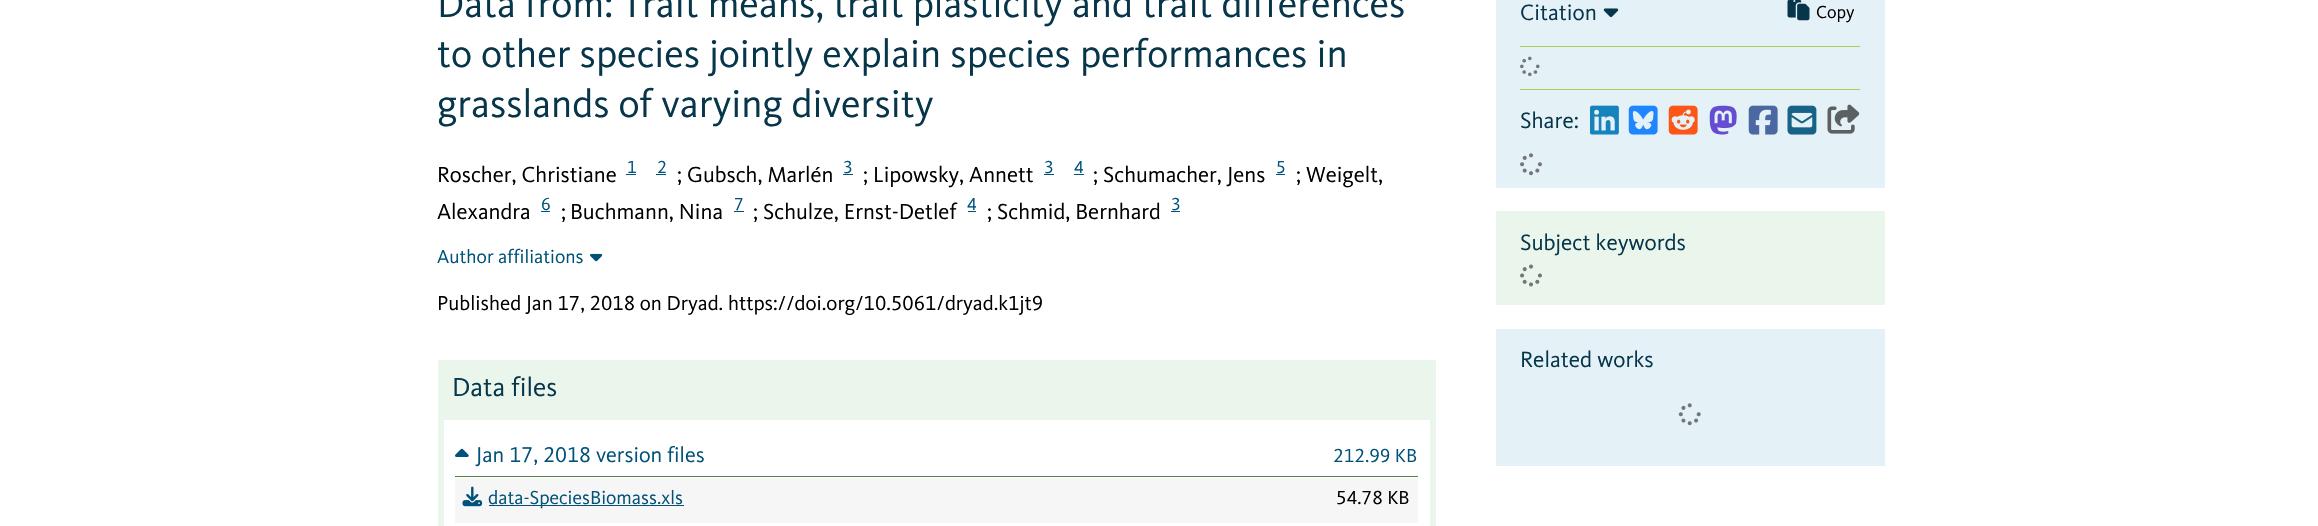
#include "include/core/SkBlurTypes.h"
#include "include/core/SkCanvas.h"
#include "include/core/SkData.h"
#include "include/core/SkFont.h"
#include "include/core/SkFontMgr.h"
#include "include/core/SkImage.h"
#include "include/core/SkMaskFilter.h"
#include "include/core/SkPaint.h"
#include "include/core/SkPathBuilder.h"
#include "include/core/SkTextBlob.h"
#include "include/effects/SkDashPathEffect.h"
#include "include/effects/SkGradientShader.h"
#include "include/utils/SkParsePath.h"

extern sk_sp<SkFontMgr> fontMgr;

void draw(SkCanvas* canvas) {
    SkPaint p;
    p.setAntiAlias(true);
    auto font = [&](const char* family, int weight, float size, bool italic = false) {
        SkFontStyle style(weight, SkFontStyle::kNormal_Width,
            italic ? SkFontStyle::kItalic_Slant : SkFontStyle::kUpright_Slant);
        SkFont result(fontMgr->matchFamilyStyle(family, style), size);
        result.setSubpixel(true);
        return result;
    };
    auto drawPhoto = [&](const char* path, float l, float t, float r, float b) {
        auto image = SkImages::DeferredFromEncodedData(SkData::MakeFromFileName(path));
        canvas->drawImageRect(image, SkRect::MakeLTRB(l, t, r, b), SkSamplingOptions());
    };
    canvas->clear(0xFFFFFFFF);
    auto font1 = font("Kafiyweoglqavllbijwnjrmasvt", 400, 40);
    p.setColor(0xFF07364B);
    {
        const struct { const char* s; float x, y; } items[] = {
            {"Data from: Trait means, trait plasticity and trait differences", 437, 17},
            {"to other species jointly explain species performances in", 437, 67},
            {"grasslands of varying diversity", 437, 117},
        };
        for (auto [s, x, y] : items) {
            canvas->drawString(s, x, y, font1, p);
        }
    }
    auto font2 = font("Kafiyweoglqavllbijwnjrmasvt", 400, 22.5f);
    p.setColor(0xFF000000);
    canvas->drawString("Roscher, Christiane", 437, 182, font2, p);
    auto font3 = font("Kafiyweoglqavllbijwnjrmasvt", 400, 18);
    p.setColor(0xFF00527A);
    canvas->drawString("1", 627, 173, font3, p);
    canvas->drawRect(SkRect::MakeLTRB(626, 174, 636, 175), p);
    canvas->drawString("2", 657, 173, font3, p);
    canvas->drawRect(SkRect::MakeLTRB(656, 174, 666, 175), p);
    auto font4 = font("Kafiyweoglqavllbijwnjrmasvt", 400, 22);
    p.setColor(0xFF000000);
    canvas->drawString(";", 677, 182, font4, p);
    canvas->drawString("Gubsch, Marlén", 687, 182, font2, p);
    p.setColor(0xFF00527A);
    canvas->drawString("3", 843, 173, font3, p);
    canvas->drawRect(SkRect::MakeLTRB(843, 174, 853, 175), p);
    p.setColor(0xFF000000);
    canvas->drawString(";", 863, 182, font4, p);
    canvas->drawString("Lipowsky, Annett", 873, 182, font2, p);
    p.setColor(0xFF00527A);
    canvas->drawString("3", 1044, 173, font3, p);
    canvas->drawRect(SkRect::MakeLTRB(1044, 174, 1054, 175), p);
    canvas->drawString("4", 1074, 173, font3, p);
    canvas->drawRect(SkRect::MakeLTRB(1074, 174, 1084, 175), p);
    p.setColor(0xFF000000);
    canvas->drawString(";", 1093, 182, font4, p);
    canvas->drawString("Schumacher, Jens", 1103, 182, font2, p);
    p.setColor(0xFF00527A);
    canvas->drawString("5", 1276, 173, font3, p);
    canvas->drawRect(SkRect::MakeLTRB(1276, 174, 1285, 175), p);
    p.setColor(0xFF000000);
    canvas->drawString(";", 1296, 182, font4, p);
    canvas->drawString("Weigelt,", 1306, 182, font2, p);
    canvas->drawString("Alexandra", 437, 219, font2, p);
    p.setColor(0xFF00527A);
    canvas->drawString("6", 541, 210, font3, p);
    canvas->drawRect(SkRect::MakeLTRB(541, 211, 550, 212), p);
    p.setColor(0xFF000000);
    canvas->drawString(";", 561, 219, font4, p);
    canvas->drawString("Buchmann, Nina", 570, 219, font2, p);
    p.setColor(0xFF00527A);
    canvas->drawString("7", 734, 210, font3, p);
    canvas->drawRect(SkRect::MakeLTRB(734, 211, 744, 212), p);
    p.setColor(0xFF000000);
    canvas->drawString(";", 753, 219, font4, p);
    canvas->drawString("Schulze, Ernst-Detlef", 763, 219, font2, p);
    p.setColor(0xFF00527A);
    canvas->drawString("4", 967, 210, font3, p);
    canvas->drawRect(SkRect::MakeLTRB(968, 211, 976, 212), p);
    p.setColor(0xFF000000);
    canvas->drawString(";", 987, 219, font4, p);
    canvas->drawString("Schmid, Bernhard", 997, 219, font2, p);
    p.setColor(0xFF00527A);
    canvas->drawString("3", 1171, 210, font3, p);
    canvas->drawRect(SkRect::MakeLTRB(1171, 211, 1180, 212), p);
    auto font5 = font("Kafiyweoglqavllbijwnjrmasvt", 400, 19.5f);
    canvas->drawString("Author affiliations", 437, 263, font5, p);
    drawPhoto("media/1.png", 590, 253, 603, 262);
    auto font6 = font("Kafiyweoglqavllbijwnjrmasvt", 400, 20.9f);
    p.setColor(0xFF000000);
    canvas->drawString("Published Jan 17, 2018 on Dryad. https://doi.org/10.5061/dryad.k1jt9", 437, 310, font6, p);
    p.setColor(0xFFEAF5EB);
    canvas->drawRect(SkRect::MakeLTRB(438, 360, 1436, 420), p);
    auto font7 = font("Kafiyweoglqavllbijwnjrmasvt", 400, 27);
    p.setColor(0xFF07364B);
    canvas->drawString("Data files", 452, 396, font7, p);
    {
        const struct { float l, t, r, b; SkColor color; } items[] = {
            {1430, 420, 1436, 526, 0xFFEAF5EB},
            {438, 420, 444, 526, 0xFFEAF5EB},
            {455, 476, 1418, 477, 0xFF528346},
        };
        for (auto [l, t, r, b, color] : items) {
            p.setColor(color);
            canvas->drawRect(SkRect::MakeLTRB(l, t, r, b), p);
        }
    }
    drawPhoto("media/2.png", 455, 448, 469, 457);
    p.setColor(0xFF00527A);
    canvas->drawString("Jan 17, 2018 version files", 476, 462, font4, p);
    canvas->drawString("212.99 KB", 1333, 462, font5, p);
    p.setColor(0xFFF6F6F6);
    canvas->drawRect(SkRect::MakeLTRB(455, 478, 1418, 523), p);
    drawPhoto("media/3.png", 462, 486, 483, 507);
    p.setColor(0xFF00527A);
    canvas->drawRect(SkRect::MakeLTRB(489, 505, 684, 506), p);
    canvas->drawString("data-SpeciesBiomass.xls", 488, 504, font5, p);
    p.setColor(0xFF000000);
    canvas->drawString("54.78 KB", 1336, 504, font5, p);
    p.setColor(0xFFE4F1F7);
    canvas->drawRect(SkRect::MakeLTRB(1496, 0, 1885, 188), p);
    auto font8 = font("Kafiyweoglqavllbijwnjrmasvt", 400, 23);
    p.setColor(0xFF07364B);
    canvas->drawString("Citation", 1520, 20, font8, p);
    drawPhoto("media/4.png", 1603, 8, 1619, 18);
    drawPhoto("media/5.png", 1787, 0, 1810, 21);
    p.setColor(0xFF000000);
    canvas->drawString("Copy", 1816, 18, font3, p);
    p.setColor(0xFFACCC54);
    canvas->drawRect(SkRect::MakeLTRB(1520, 46, 1860, 47), p);
    canvas->drawRect(SkRect::MakeLTRB(1520, 89, 1860, 90), p);
    drawPhoto("media/6.png", 1520, 56, 1540, 77);
    p.setColor(0xFF07364B);
    canvas->drawString("Share:", 1520, 128, font8, p);
    drawPhoto("media/7.png", 1590, 105, 1619, 135);
    drawPhoto("media/8.png", 1628, 105, 1658, 135);
    drawPhoto("media/9.png", 1668, 105, 1698, 135);
    drawPhoto("media/10.png", 1709, 105, 1737, 135);
    drawPhoto("media/11.png", 1748, 105, 1778, 135);
    drawPhoto("media/12.png", 1787, 105, 1817, 135);
    drawPhoto("media/13.png", 1827, 104, 1860, 134);
    drawPhoto("media/14.png", 1520, 153, 1542, 176);
    p.setColor(0xFFEAF5EB);
    canvas->drawRect(SkRect::MakeLTRB(1496, 211, 1885, 305), p);
    p.setColor(0xFF07364B);
    canvas->drawString("Subject keywords", 1520, 250, font8, p);
    drawPhoto("media/15.png", 1520, 264, 1542, 287);
    p.setColor(0xFFE4F1F7);
    canvas->drawRect(SkRect::MakeLTRB(1496, 329, 1885, 466), p);
    p.setColor(0xFF07364B);
    canvas->drawString("Related works", 1520, 367, font8, p);
    drawPhoto("media/16.png", 1678, 403, 1701, 426);
}
